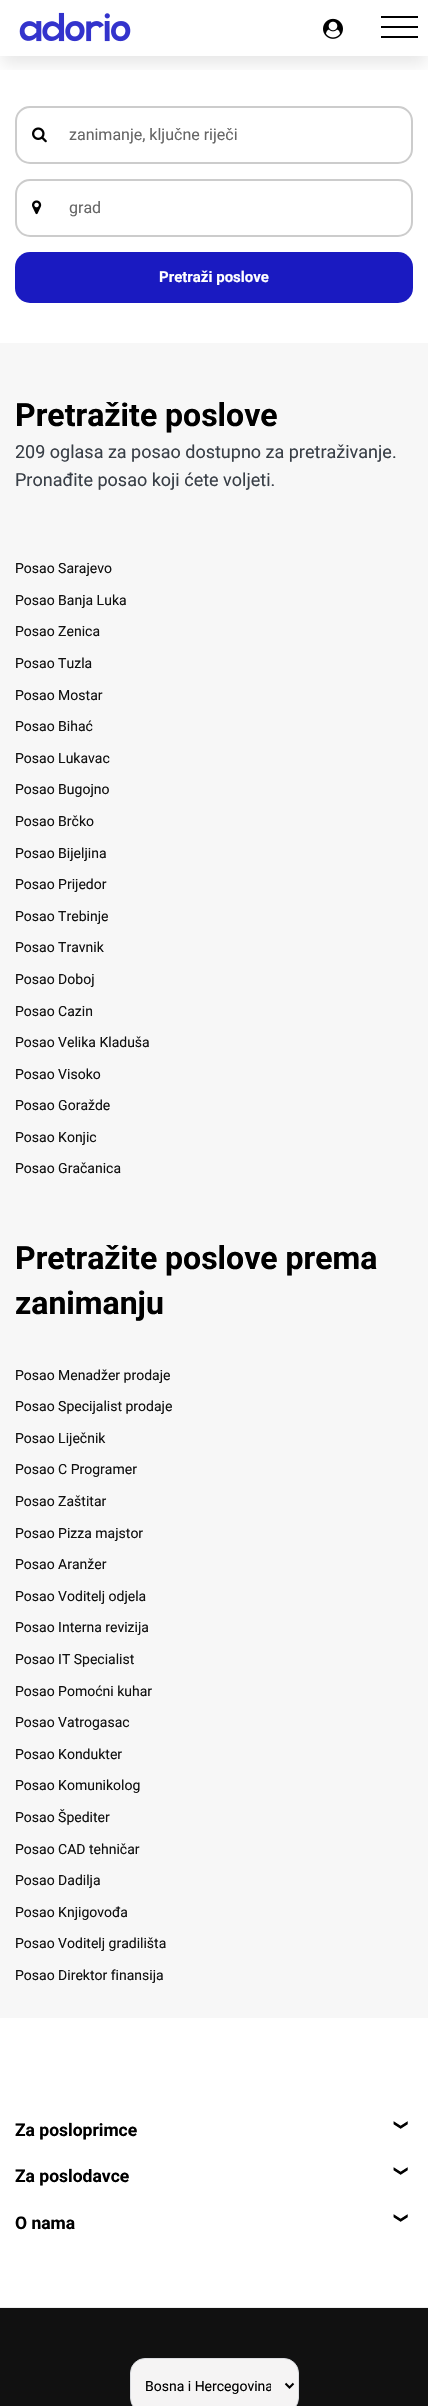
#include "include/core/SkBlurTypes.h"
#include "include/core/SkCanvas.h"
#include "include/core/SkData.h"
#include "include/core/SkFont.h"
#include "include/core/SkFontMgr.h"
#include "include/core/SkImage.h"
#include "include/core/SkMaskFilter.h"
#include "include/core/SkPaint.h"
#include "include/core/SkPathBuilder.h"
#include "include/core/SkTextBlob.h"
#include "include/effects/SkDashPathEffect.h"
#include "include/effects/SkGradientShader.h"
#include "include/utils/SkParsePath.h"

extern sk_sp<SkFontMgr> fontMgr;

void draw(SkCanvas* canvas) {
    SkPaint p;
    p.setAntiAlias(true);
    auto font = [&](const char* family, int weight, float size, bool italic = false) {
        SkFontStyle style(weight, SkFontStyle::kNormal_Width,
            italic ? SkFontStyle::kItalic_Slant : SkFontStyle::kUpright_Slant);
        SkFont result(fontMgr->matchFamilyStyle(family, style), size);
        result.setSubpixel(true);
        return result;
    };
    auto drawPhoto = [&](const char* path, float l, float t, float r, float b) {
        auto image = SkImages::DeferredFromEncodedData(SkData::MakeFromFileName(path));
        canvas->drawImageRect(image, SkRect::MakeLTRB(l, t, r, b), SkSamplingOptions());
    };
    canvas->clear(0xFFFFFFFF);
    canvas->save();
    canvas->clipRect(SkRect::MakeLTRB(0, 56, 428, 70));
    p.setColor(0x17000000);
    p.setMaskFilter(SkMaskFilter::MakeBlur(kNormal_SkBlurStyle, 7.5f));
    canvas->drawRect(SkRect::MakeLTRB(2, 12, 426, 64), p);
    p.setMaskFilter(nullptr);
    canvas->restore();
    drawPhoto("media/1.png", 19, 12, 131, 42);
    drawPhoto("media/2.png", 323, 18, 343, 39);
    {
        const struct { float l, t, r, b; SkColor color; } items[] = {
            {381, 16, 418, 18, 0xFF000000},
            {381, 26, 418, 28, 0xFF000000},
            {381, 36, 418, 38, 0xFF000000},
        };
        for (auto [l, t, r, b, color] : items) {
            p.setColor(color);
            canvas->drawRect(SkRect::MakeLTRB(l, t, r, b), p);
        }
    }
    p.setStyle(SkPaint::kStroke_Style);
    p.setStrokeWidth(2);
    p.setColor(0xFFCCCCCC);
    canvas->drawRoundRect(SkRect::MakeLTRB(16, 107, 412, 163), 14, 14, p);
    drawPhoto("media/3.png", 32, 127, 47, 143);
    auto font1 = font("Roboto", 400, 16);
    p.setStyle(SkPaint::kFill_Style);
    p.setColor(0xFF666666);
    canvas->drawString("zanimanje, ključne riječi", 69, 140, font1, p);
    p.setStyle(SkPaint::kStroke_Style);
    p.setColor(0xFFCCCCCC);
    canvas->drawRoundRect(SkRect::MakeLTRB(16, 180, 412, 236), 14, 14, p);
    drawPhoto("media/4.png", 32, 200, 42, 215);
    p.setStyle(SkPaint::kFill_Style);
    p.setColor(0xFF666666);
    canvas->drawString("grad", 69, 213, font1, p);
    p.setColor(0xFF1A1AC1);
    canvas->drawRoundRect(SkRect::MakeLTRB(15, 252, 413, 303), 15, 15, p);
    auto font2 = font("Roboto", 700, 15);
    p.setColor(0xFFFFFFFF);
    canvas->drawString("Pretraži poslove", 159, 282, font2, p);
    p.setColor(0xFFF7F7F7);
    canvas->drawRect(SkRect::MakeLTRB(0, 343, 428, 2018), p);
    auto font3 = font("Roboto", 700, 32);
    p.setColor(0xFF000000);
    canvas->drawString("Pretražite poslove", 15, 426, font3, p);
    auto font4 = font("Roboto", 400, 18);
    p.setColor(0xFF393F47);
    canvas->drawString("209 oglasa za posao dostupno za pretraživanje.", 15, 458, font4, p);
    canvas->drawString("Pronađite posao koji ćete voljeti.", 15, 486, font4, p);
    auto font5 = font("Roboto", 400, 14);
    p.setColor(0xFF111111);
    {
        const struct { const char* s; float x, y; } items[] = {
            {"Posao Sarajevo", 15, 573},
            {"Posao Banja Luka", 15, 605},
            {"Posao Zenica", 15, 636},
            {"Posao Tuzla", 15, 668},
            {"Posao Mostar", 15, 700},
            {"Posao Bihać", 15, 731},
            {"Posao Lukavac", 15, 763},
            {"Posao Bugojno", 15, 794},
            {"Posao Brčko", 15, 826},
            {"Posao Bijeljina", 15, 858},
            {"Posao Prijedor", 15, 889},
            {"Posao Trebinje", 15, 921},
            {"Posao Travnik", 15, 952},
            {"Posao Doboj", 15, 984},
            {"Posao Cazin", 15, 1016},
            {"Posao Velika Kladuša", 15, 1047},
            {"Posao Visoko", 15, 1079},
            {"Posao Goražde", 15, 1110},
            {"Posao Konjic", 15, 1142},
            {"Posao Gračanica", 15, 1173},
        };
        for (auto [s, x, y] : items) {
            canvas->drawString(s, x, y, font5, p);
        }
    }
    p.setColor(0xFF000000);
    canvas->drawString("Pretražite poslove prema", 15, 1269, font3, p);
    canvas->drawString("zanimanju", 15, 1314, font3, p);
    p.setColor(0xFF111111);
    {
        const struct { const char* s; float x, y; } items[] = {
            {"Posao Menadžer prodaje", 15, 1380},
            {"Posao Specijalist prodaje", 15, 1411},
            {"Posao Liječnik", 15, 1443},
            {"Posao C Programer", 15, 1474},
            {"Posao Zaštitar", 15, 1506},
            {"Posao Pizza majstor", 15, 1538},
            {"Posao Aranžer", 15, 1569},
            {"Posao Voditelj odjela", 15, 1601},
            {"Posao Interna revizija", 15, 1632},
            {"Posao IT Specialist", 15, 1664},
            {"Posao Pomoćni kuhar", 15, 1696},
            {"Posao Vatrogasac", 15, 1727},
            {"Posao Kondukter", 15, 1759},
            {"Posao Komunikolog", 15, 1790},
            {"Posao Špediter", 15, 1822},
            {"Posao CAD tehničar", 15, 1854},
            {"Posao Dadilja", 15, 1885},
            {"Posao Knjigovođa", 15, 1917},
            {"Posao Voditelj gradilišta", 15, 1948},
            {"Posao Direktor finansija", 15, 1980},
        };
        for (auto [s, x, y] : items) {
            canvas->drawString(s, x, y, font5, p);
        }
    }
    auto font6 = font("Roboto", 700, 17.5f);
    p.setColor(0xFF000000);
    canvas->drawString("Za posloprimce", 15, 2136, font6, p);
    auto font7 = font("DejaVu Sans", 400, 14);
    canvas->save();
    canvas->rotate(90, 397, 2119);
    canvas->drawString("❯", 397, 2119, font7, p);
    canvas->restore();
    canvas->drawString("Za poslodavce", 15, 2182, font6, p);
    canvas->save();
    canvas->rotate(90, 397, 2165);
    canvas->drawString("❯", 397, 2165, font7, p);
    canvas->restore();
    canvas->drawString("O nama", 15, 2229, font6, p);
    canvas->save();
    canvas->rotate(90, 397, 2212);
    canvas->drawString("❯", 397, 2212, font7, p);
    canvas->restore();
    p.setColor(0xFFEEEEEE);
    canvas->drawRect(SkRect::MakeLTRB(0, 2307, 428, 2308), p);
    p.setColor(0xFF111111);
    canvas->drawRect(SkRect::MakeLTRB(0, 2308, 428, 2406), p);
    p.setColor(0xFFF5F4F4);
    canvas->drawRoundRect(SkRect::MakeLTRB(130.5f, 2358.5f, 298.5f, 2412.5f), 14.5f, 14.5f, p);
    p.setStyle(SkPaint::kStroke_Style);
    p.setStrokeWidth(1);
    p.setColor(0xFFDADCE0);
    canvas->drawRoundRect(SkRect::MakeLTRB(130.5f, 2358.5f, 298.5f, 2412.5f), 14.5f, 14.5f, p);
    p.setStrokeWidth(2);
    p.setColor(0xFF000000);
    canvas->drawPath(SkPathBuilder().moveTo(285.5f, 2383.5f).lineTo(289.5f, 2387.5f).lineTo(293.5f, 2383.5f).detach(), p);
    canvas->save();
    canvas->clipRect(SkRect::MakeLTRB(145, 2377, 271, 2395));
    p.setStyle(SkPaint::kFill_Style);
    canvas->drawString("Bosna i Hercegovina", 145, 2391, font5, p);
    canvas->restore();
}
